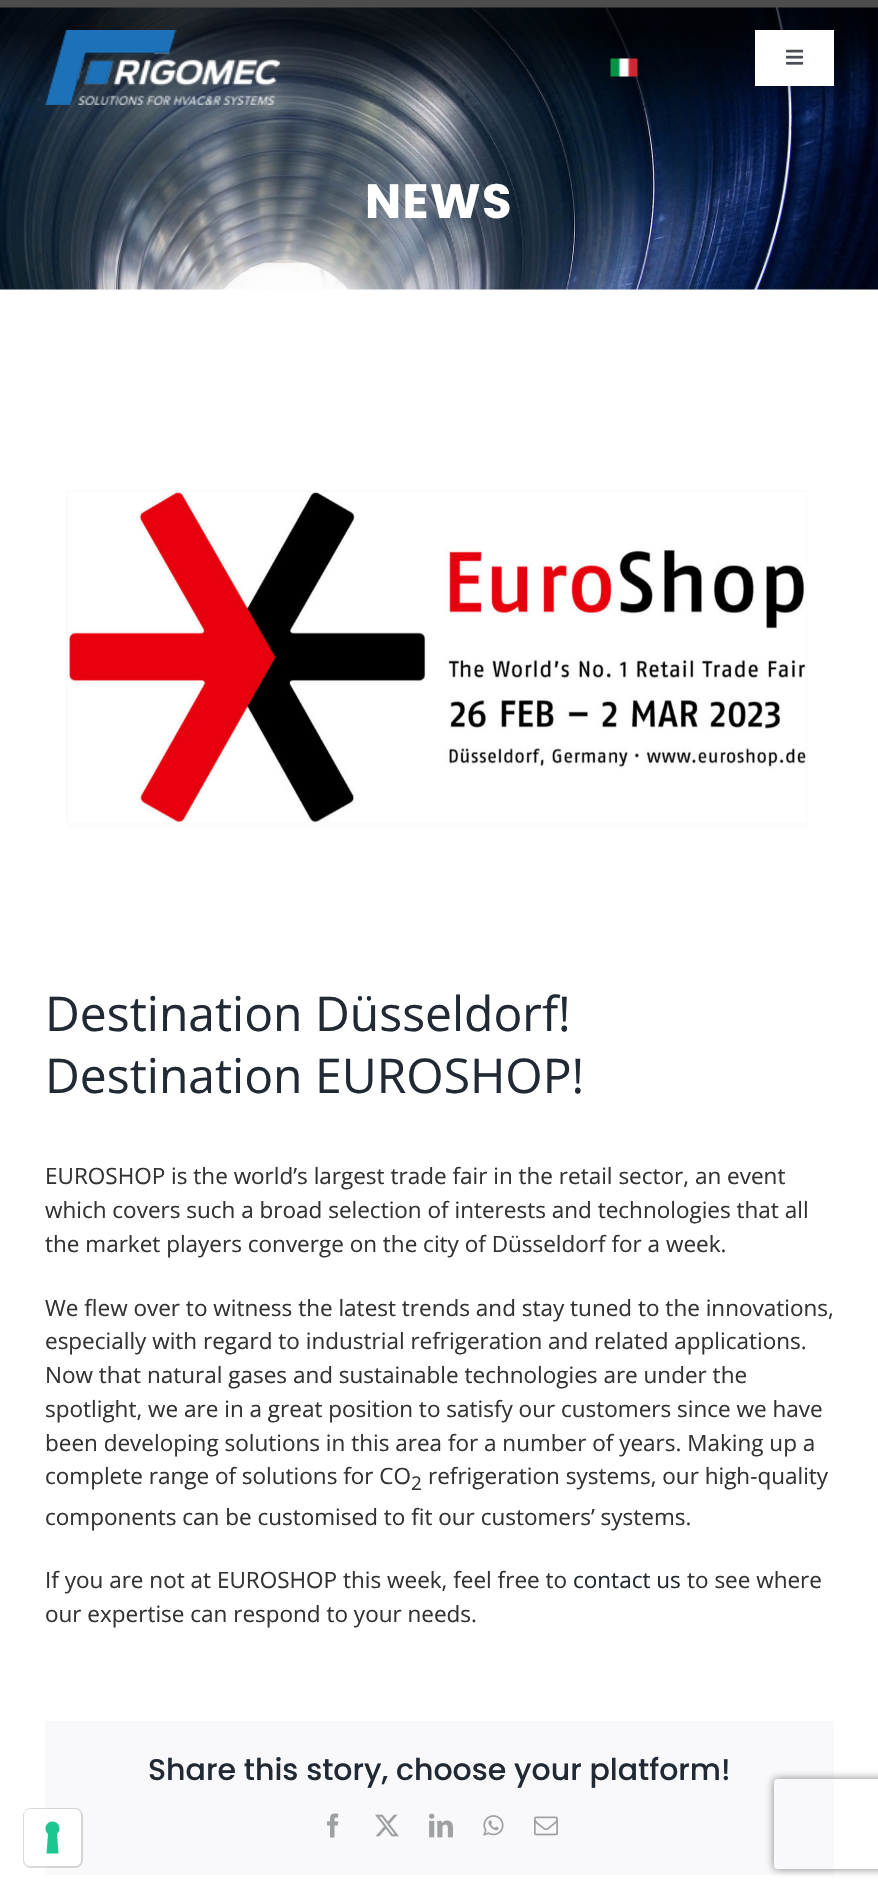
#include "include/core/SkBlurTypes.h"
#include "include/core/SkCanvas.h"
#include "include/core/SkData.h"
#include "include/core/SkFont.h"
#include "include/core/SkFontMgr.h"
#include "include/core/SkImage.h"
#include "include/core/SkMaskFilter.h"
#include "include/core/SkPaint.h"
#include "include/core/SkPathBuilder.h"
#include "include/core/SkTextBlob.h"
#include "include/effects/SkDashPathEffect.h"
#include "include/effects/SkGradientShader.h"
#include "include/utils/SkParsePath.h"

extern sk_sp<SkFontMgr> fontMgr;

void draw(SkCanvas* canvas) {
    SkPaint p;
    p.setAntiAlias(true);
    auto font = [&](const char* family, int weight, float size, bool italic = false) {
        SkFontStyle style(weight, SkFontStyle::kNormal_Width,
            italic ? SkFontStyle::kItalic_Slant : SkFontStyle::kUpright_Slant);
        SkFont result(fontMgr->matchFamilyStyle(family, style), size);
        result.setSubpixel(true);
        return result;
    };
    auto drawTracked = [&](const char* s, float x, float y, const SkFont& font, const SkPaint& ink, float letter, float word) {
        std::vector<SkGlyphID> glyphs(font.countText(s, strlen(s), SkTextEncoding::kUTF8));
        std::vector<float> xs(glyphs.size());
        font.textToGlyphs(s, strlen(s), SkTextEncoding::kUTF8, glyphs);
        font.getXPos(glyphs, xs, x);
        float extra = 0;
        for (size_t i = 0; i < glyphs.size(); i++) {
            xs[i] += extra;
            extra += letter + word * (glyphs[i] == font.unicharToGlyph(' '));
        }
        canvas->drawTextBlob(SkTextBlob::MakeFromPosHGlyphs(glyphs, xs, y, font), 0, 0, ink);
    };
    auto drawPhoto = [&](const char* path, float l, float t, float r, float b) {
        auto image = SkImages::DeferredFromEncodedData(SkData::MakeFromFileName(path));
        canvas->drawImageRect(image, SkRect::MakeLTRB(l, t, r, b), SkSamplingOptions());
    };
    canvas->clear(0xFFFFFFFF);
    drawPhoto("media/4.png", 0, 7, 878, 290);
    {
        const SkColor colors[] = {0xB3000000, 0x00000000};
        const float stops[] = {0.3f, 1};
        const SkPoint ends[] = {{440, 0}, {440, 105}};
        p.setShader(SkGradientShader::MakeLinear(ends, colors, stops, 2, SkTileMode::kClamp));
        p.setAlpha(255);
    }
    canvas->drawRect(SkRect::MakeLTRB(0, 0, 878, 103), p);
    drawPhoto("media/1.png", 45, 30, 280, 105);
    drawPhoto("media/2.png", 610, 58, 638, 77);
    p.setShader(nullptr);
    p.setColor(0xFFFFFFFF);
    canvas->drawRect(SkRect::MakeLTRB(755, 30, 834, 86), p);
    drawPhoto("media/3.png", 786, 49, 804, 65);
    auto font1 = font("Poppins", 700, 48);
    drawTracked("NEWS", 365, 218, font1, p, 1.5f, 0);
    drawPhoto("media/5.png", 66, 490, 808, 828);
    auto font2 = font("Open Sans", 400, 48);
    p.setColor(0xFF212934);
    canvas->drawString("Destination Düsseldorf!", 45, 1031, font2, p);
    canvas->drawString("Destination EUROSHOP!", 45, 1093, font2, p);
    auto font3 = font("Open Sans", 400, 22.5f);
    p.setColor(0xFF333333);
    {
        const struct { const char* s; float x, y; } items[] = {
            {"EUROSHOP is the world’s largest trade fair in the retail sector, an event", 45, 1184},
            {"which covers such a broad selection of interests and technologies that all", 45, 1218},
            {"the market players converge on the city of Düsseldorf for a week.", 45, 1252},
            {"We flew over to witness the latest trends and stay tuned to the innovations,", 45, 1316},
            {"especially with regard to industrial refrigeration and related applications.", 45, 1349},
            {"Now that natural gases and sustainable technologies are under the", 45, 1383},
            {"spotlight, we are in a great position to satisfy our customers since we have", 45, 1417},
            {"been developing solutions in this area for a number of years. Making up a", 45, 1451},
            {"complete range of solutions for CO", 45, 1484},
        };
        for (auto [s, x, y] : items) {
            canvas->drawString(s, x, y, font3, p);
        }
    }
    auto font4 = font("Open Sans", 400, 19);
    canvas->drawString("2", 411, 1490, font4, p);
    {
        const struct { const char* s; float x, y; } items[] = {
            {"refrigeration systems, our high-quality", 428, 1484},
            {"components can be customised to fit our customers’ systems.", 45, 1525},
            {"If you are not at EUROSHOP this week, feel free to", 45, 1588},
        };
        for (auto [s, x, y] : items) {
            canvas->drawString(s, x, y, font3, p);
        }
    }
    p.setColor(0xFF212934);
    canvas->drawString("contact us", 573, 1588, font3, p);
    p.setColor(0xFF333333);
    canvas->drawString("to see where", 687, 1588, font3, p);
    canvas->drawString("our expertise can respond to your needs.", 45, 1622, font3, p);
    p.setColor(0xFFF9F9FB);
    canvas->drawRect(SkRect::MakeLTRB(45, 1721, 834, 1875), p);
    auto font5 = font("Poppins", 500, 30);
    p.setColor(0xFF212934);
    canvas->drawString("Share this story, choose your platform!", 148, 1780, font5, p);
    drawPhoto("media/6.png", 327, 1813, 339, 1838);
    drawPhoto("media/7.png", 375, 1814, 399, 1837);
    drawPhoto("media/8.png", 429, 1813, 453, 1838);
    drawPhoto("media/9.png", 483, 1815, 504, 1836);
    drawPhoto("media/10.png", 534, 1816, 558, 1836);
    p.setStyle(SkPaint::kStroke_Style);
    p.setStrokeWidth(2);
    p.setColor(0x26000000);
    canvas->drawRoundRect(SkRect::MakeLTRB(24, 1809, 82, 1867), 7, 7, p);
    p.setStyle(SkPaint::kFill_Style);
    p.setColor(0xFFFFFFFF);
    canvas->drawRoundRect(SkRect::MakeLTRB(24, 1809, 81, 1866), 6, 6, p);
    p.setColor(0xFF1CC691);
    canvas->drawPath(SkPathBuilder(SkPathFillType::kEvenOdd).moveTo(52.5f, 1821.5f).cubicTo(59, 1821.5f, 62, 1829.5f, 57, 1834).lineTo(58.5f, 1853.5f).lineTo(46.5f, 1853.5f).lineTo(48, 1834).cubicTo(43, 1829.5f, 46, 1821.5f, 52.5f, 1821.5f).close().detach(), p);
    canvas->save();
    canvas->clipPath(SkPathBuilder(SkPathFillType::kEvenOdd).moveTo(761, 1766).lineTo(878, 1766).lineTo(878, 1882).lineTo(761, 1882).close().moveTo(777, 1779).lineTo(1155, 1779).cubicTo(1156.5f, 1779, 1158, 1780.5f, 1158, 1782).lineTo(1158, 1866).cubicTo(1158, 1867.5f, 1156.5f, 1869, 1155, 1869).lineTo(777, 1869).cubicTo(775.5f, 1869, 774, 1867.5f, 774, 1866).lineTo(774, 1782).cubicTo(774, 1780.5f, 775.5f, 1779, 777, 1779).close().detach(), true);
    p.setColor(0xFF808080);
    p.setMaskFilter(SkMaskFilter::MakeBlur(kNormal_SkBlurStyle, 4));
    canvas->drawRoundRect(SkRect::MakeLTRB(774, 1779, 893, 1869), 3, 3, p);
    p.setMaskFilter(nullptr);
    canvas->restore();
}
